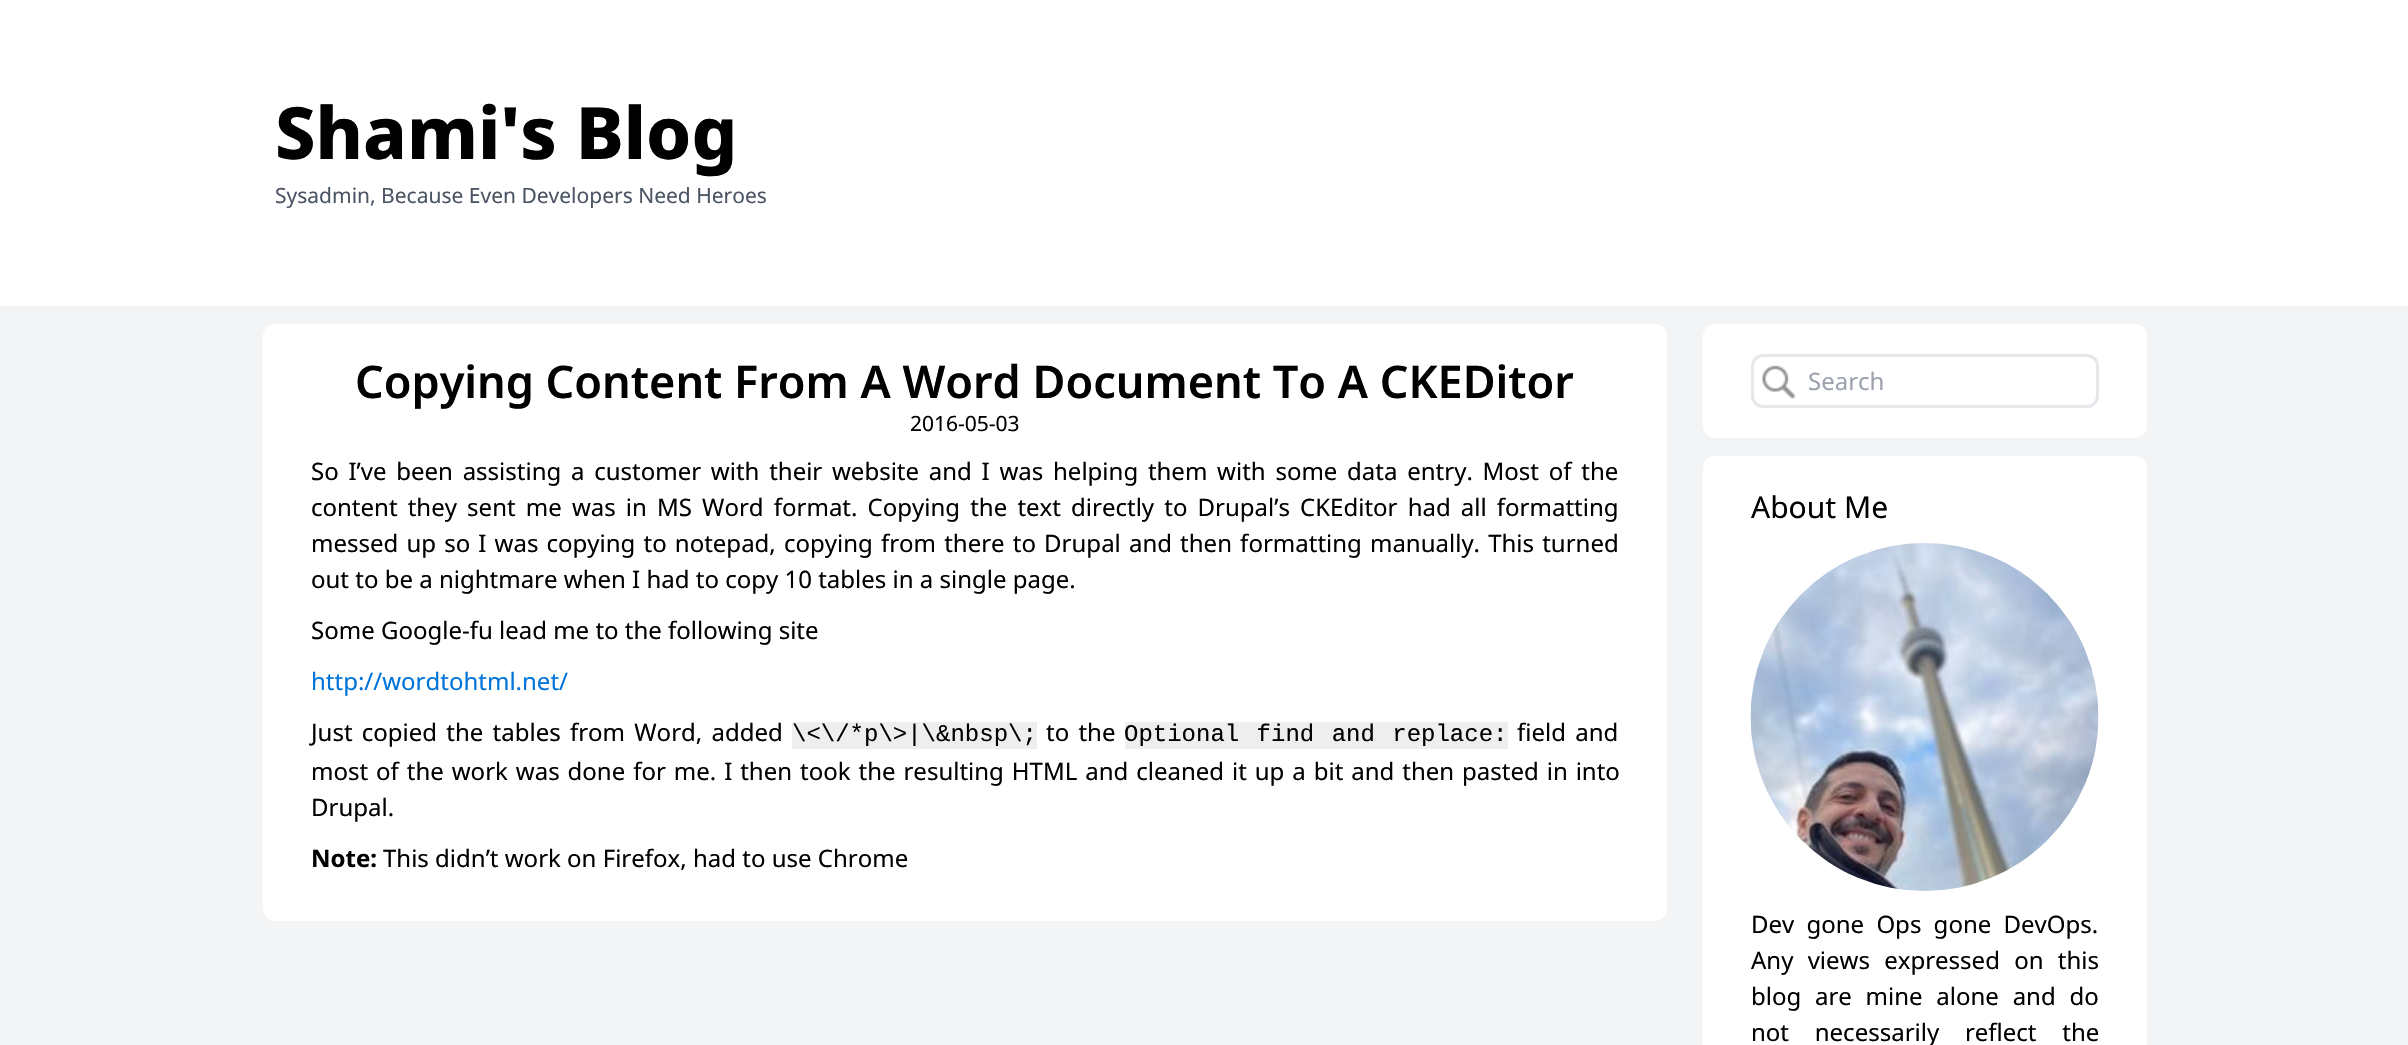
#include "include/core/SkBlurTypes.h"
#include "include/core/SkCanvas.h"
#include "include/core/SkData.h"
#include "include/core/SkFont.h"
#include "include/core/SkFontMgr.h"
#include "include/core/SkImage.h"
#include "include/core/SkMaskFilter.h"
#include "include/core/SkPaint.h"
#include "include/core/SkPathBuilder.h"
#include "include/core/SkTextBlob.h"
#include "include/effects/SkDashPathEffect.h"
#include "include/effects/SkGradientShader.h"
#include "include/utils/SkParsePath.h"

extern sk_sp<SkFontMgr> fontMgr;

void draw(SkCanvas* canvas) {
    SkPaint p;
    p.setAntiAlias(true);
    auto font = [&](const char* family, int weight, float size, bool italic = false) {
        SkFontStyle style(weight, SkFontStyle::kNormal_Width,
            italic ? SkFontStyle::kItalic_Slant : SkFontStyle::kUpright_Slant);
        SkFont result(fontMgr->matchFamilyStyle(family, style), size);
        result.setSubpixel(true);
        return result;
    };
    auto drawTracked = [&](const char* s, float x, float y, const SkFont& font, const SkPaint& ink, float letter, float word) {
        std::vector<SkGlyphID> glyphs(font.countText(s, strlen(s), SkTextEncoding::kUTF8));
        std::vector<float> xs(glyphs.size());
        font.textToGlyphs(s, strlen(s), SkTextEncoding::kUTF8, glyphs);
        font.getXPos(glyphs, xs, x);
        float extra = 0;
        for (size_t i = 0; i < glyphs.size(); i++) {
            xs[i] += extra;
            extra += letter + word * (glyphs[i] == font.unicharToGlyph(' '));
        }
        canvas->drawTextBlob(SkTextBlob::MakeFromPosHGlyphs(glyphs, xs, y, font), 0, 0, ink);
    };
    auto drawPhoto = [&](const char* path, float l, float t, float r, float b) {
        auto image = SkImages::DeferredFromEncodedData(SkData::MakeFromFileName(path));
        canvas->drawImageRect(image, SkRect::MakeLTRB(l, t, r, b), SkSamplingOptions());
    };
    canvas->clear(0xFFF3F4F6);
    p.setColor(0xFFFFFFFF);
    canvas->drawRect(SkRect::MakeLTRB(0, 0, 2408, 306), p);
    auto font1 = font("Noto Sans", 800, 72);
    p.setColor(0xFF000000);
    canvas->drawString("Shami's Blog", 275, 159, font1, p);
    auto font2 = font("Noto Sans", 400, 21);
    p.setColor(0xFF4B5563);
    canvas->drawString("Sysadmin, Because Even Developers Need Heroes", 275, 203, font2, p);
    p.setColor(0xFFFFFFFF);
    canvas->drawRoundRect(SkRect::MakeLTRB(263, 324, 1667, 921), 12, 12, p);
    auto font3 = font("Noto Sans", 600, 45);
    p.setColor(0xFF000000);
    canvas->drawString("Copying Content From A Word Document To A CKEDitor", 355, 398, font3, p);
    canvas->drawString("2016-05-03", 910, 431, font2, p);
    auto font4 = font("Noto Sans", 400, 24);
    drawTracked("So I’ve been assisting a customer with their website and I was helping them with some data entry. Most of the", 311, 480, font4, p, 0, 3.5f);
    drawTracked("content they sent me was in MS Word format. Copying the text directly to Drupal’s CKEditor had all formatting", 311, 516, font4, p, 0, 3.9f);
    drawTracked("messed up so I was copying to notepad, copying from there to Drupal and then formatting manually. This turned", 311, 552, font4, p, 0, 1.9f);
    canvas->drawString("out to be a nightmare when I had to copy 10 tables in a single page.", 311, 588, font4, p);
    canvas->drawString("Some Google-fu lead me to the following site", 311, 639, font4, p);
    p.setColor(0xFF0074D9);
    canvas->drawString("http://wordtohtml.net/", 311, 690, font4, p);
    p.setColor(0xFF000000);
    drawTracked("Just copied the tables from Word, added", 311, 741, font4, p, 0, 3);
    p.setColor(0xFFEEEEEE);
    canvas->drawRect(SkRect::MakeLTRB(792, 722, 1037, 749), p);
    auto font5 = font("Liberation Mono", 400, 24);
    p.setColor(0xFF000000);
    canvas->drawString("\\<\\/*p\\>|\\&nbsp\\;", 792, 741, font5, p);
    drawTracked("to the", 1046, 741, font4, p, 0, 3);
    p.setColor(0xFFEEEEEE);
    canvas->drawRect(SkRect::MakeLTRB(1125, 722, 1508, 749), p);
    p.setColor(0xFF000000);
    drawTracked("Optional find and replace:", 1124, 741, font5, p, 0, 3);
    drawTracked("field and", 1517, 741, font4, p, 0, 3);
    drawTracked("most of the work was done for me. I then took the resulting HTML and cleaned it up a bit and then pasted in into", 311, 780, font4, p, 0, 1.7f);
    canvas->drawString("Drupal.", 311, 816, font4, p);
    auto font6 = font("Noto Sans", 700, 24);
    canvas->drawString("Note:", 311, 867, font6, p);
    canvas->drawString("This didn’t work on Firefox, had to use Chrome", 383, 867, font4, p);
    p.setColor(0xFFFFFFFF);
    canvas->drawRoundRect(SkRect::MakeLTRB(1703, 324, 2147, 438), 12, 12, p);
    drawPhoto("media/1.png", 1762, 365, 1796, 400);
    p.setStyle(SkPaint::kStroke_Style);
    p.setStrokeWidth(3);
    p.setColor(0xFFE5E7EB);
    canvas->drawRoundRect(SkRect::MakeLTRB(1752.5f, 355.5f, 2097.5f, 406.5f), 10.5f, 10.5f, p);
    p.setStyle(SkPaint::kFill_Style);
    p.setColor(0xFF9CA3AF);
    canvas->drawString("Search", 1808, 390, font4, p);
    p.setColor(0xFFFFFFFF);
    canvas->drawRoundRect(SkRect::MakeLTRB(1703, 456, 2147, 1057), 12, 12, p);
    auto font7 = font("Noto Sans", 400, 30);
    p.setColor(0xFF000000);
    canvas->drawString("About Me", 1751, 518, font7, p);
    drawPhoto("media/2.png", 1750, 543, 2099, 891);
    drawTracked("Dev gone Ops gone DevOps.", 1751, 933, font4, p, 0, 6);
    drawTracked("Any views expressed on this", 1751, 969, font4, p, 0, 8);
    drawTracked("blog are mine alone and do", 1751, 1005, font4, p, 0, 7.5f);
    drawTracked("not necessarily reflect the", 1751, 1041, font4, p, 0, 19.5f);
}
